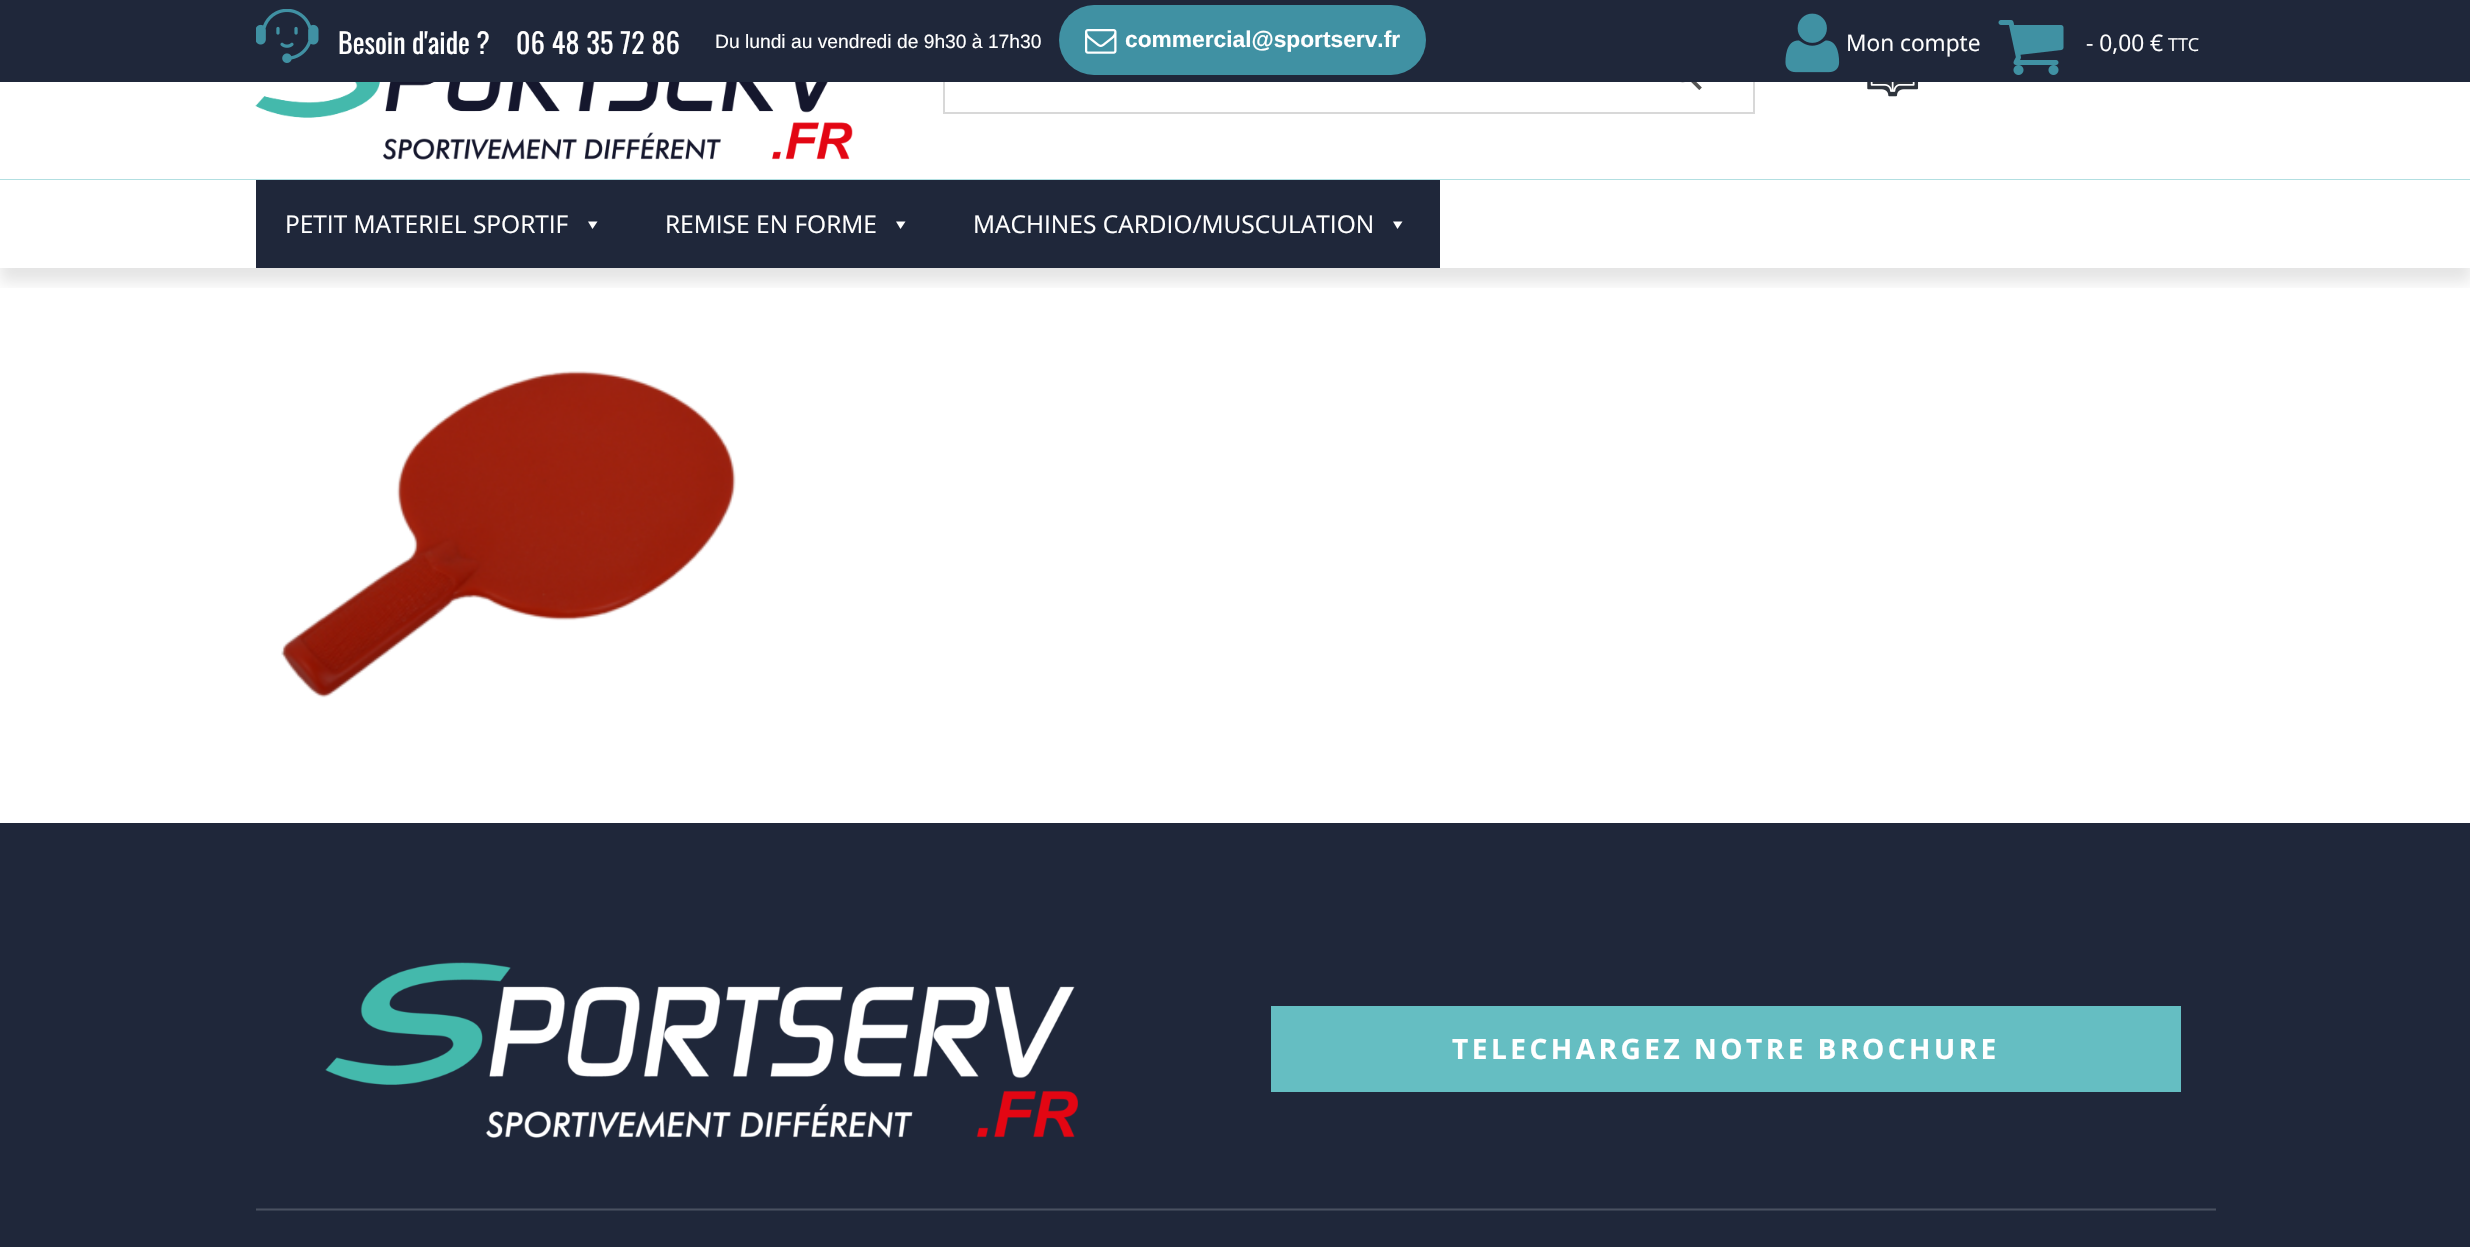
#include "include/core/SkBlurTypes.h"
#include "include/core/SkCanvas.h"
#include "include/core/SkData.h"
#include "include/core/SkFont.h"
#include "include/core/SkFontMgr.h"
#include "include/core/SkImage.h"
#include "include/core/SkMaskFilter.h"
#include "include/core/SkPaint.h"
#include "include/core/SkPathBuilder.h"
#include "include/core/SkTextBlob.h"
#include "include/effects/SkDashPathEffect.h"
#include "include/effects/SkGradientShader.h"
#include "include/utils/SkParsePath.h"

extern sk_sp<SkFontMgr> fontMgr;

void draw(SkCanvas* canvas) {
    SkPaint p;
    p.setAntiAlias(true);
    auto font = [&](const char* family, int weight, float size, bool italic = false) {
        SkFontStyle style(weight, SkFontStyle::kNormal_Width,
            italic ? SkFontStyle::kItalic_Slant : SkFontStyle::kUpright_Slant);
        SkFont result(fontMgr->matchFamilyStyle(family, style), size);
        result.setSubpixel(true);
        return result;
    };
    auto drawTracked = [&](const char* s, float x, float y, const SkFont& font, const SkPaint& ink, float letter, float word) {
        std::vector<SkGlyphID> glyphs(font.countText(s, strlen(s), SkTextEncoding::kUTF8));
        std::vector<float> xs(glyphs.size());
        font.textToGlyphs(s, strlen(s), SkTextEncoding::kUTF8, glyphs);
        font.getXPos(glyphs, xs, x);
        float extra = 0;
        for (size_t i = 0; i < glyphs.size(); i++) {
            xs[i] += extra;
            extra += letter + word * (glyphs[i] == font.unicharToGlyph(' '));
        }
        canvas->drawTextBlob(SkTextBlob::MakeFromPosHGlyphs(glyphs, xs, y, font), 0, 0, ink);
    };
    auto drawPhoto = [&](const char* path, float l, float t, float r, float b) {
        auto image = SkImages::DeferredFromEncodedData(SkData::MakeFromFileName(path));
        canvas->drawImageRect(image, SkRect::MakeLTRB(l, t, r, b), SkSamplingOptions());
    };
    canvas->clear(0xFFFFFFFF);
    canvas->save();
    canvas->clipRect(SkRect::MakeLTRB(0, 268, 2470, 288));
    p.setColor(0x1A000000);
    p.setMaskFilter(SkMaskFilter::MakeBlur(kNormal_SkBlurStyle, 7));
    canvas->drawRect(SkRect::MakeLTRB(0, -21, 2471, 282), p);
    p.setMaskFilter(nullptr);
    canvas->restore();
    p.setStyle(SkPaint::kStroke_Style);
    p.setStrokeWidth(2);
    p.setColor(0xFFD8D8D8);
    canvas->drawRect(SkRect::MakeLTRB(944, 38, 1754, 113), p);
    p.setStyle(SkPaint::kFill_Style);
    p.setColor(0xFF1F273A);
    canvas->drawRect(SkRect::MakeLTRB(0, 0, 2470, 82), p);
    drawPhoto("media/1.png", 256, 9, 319, 63);
    auto font1 = font("Oswald", 400, 28);
    p.setColor(0xFFFFFFFF);
    canvas->drawString("Besoin d'aide ?", 338, 54, font1, p);
    drawTracked("06 48 35 72 86", 516, 54, font1, p, 0.25f, 0);
    auto font2 = font("Liberation Sans", 400, 19.25f);
    canvas->drawString("Du lundi au vendredi de 9h30 à 17h30", 715, 48, font2, p);
    p.setColor(0xFF4091A3);
    canvas->drawRoundRect(SkRect::MakeLTRB(1059, 5, 1426, 75), 35, 35, p);
    drawPhoto("media/2.png", 1085, 29, 1117, 54);
    auto font3 = font("Liberation Sans", 700, 22.75f);
    p.setColor(0xFFFFFFFF);
    canvas->drawString("commercial@sportserv.fr", 1125, 47, font3, p);
    drawPhoto("media/3.png", 1785, 13, 1840, 73);
    auto font4 = font("Open Sans", 400, 22.75f);
    canvas->drawString("Mon compte", 1846, 51, font4, p);
    drawPhoto("media/4.png", 1998, 20, 2064, 75);
    canvas->drawString("- 0,00 €", 2086, 51, font4, p);
    auto font5 = font("Open Sans", 400, 18);
    canvas->drawString("TTC", 2168, 51, font5, p);
    p.setColor(0xFFB2DFE1);
    canvas->drawRect(SkRect::MakeLTRB(0, 179, 2470, 180), p);
    drawPhoto("media/5.png", 255, 82, 853, 160);
    drawPhoto("media/6.png", 1680, 82, 1702, 90);
    drawPhoto("media/7.png", 1867, 82, 1919, 97);
    p.setColor(0xFFFFFFFF);
    canvas->drawRect(SkRect::MakeLTRB(0, 267, 2470, 268), p);
    p.setColor(0xFF1F273A);
    canvas->drawRect(SkRect::MakeLTRB(256, 180, 1440, 268), p);
    auto font6 = font("Open Sans", 400, 24.5f);
    p.setColor(0xFFFFFFFF);
    canvas->drawString("PETIT MATERIEL SPORTIF", 285, 233, font6, p);
    canvas->drawPath(SkPathBuilder().moveTo(597.5f, 221.5f).lineTo(592.5f, 229).lineTo(588, 221.5f).close().detach(), p);
    canvas->drawString("REMISE EN FORME", 665, 233, font6, p);
    canvas->drawPath(SkPathBuilder().moveTo(905.5f, 221.5f).lineTo(900.5f, 229).lineTo(896, 221.5f).close().detach(), p);
    canvas->drawString("MACHINES CARDIO/MUSCULATION", 973, 233, font6, p);
    canvas->drawPath(SkPathBuilder().moveTo(1402.5f, 221.5f).lineTo(1397.5f, 229).lineTo(1393, 221.5f).close().detach(), p);
    drawPhoto("media/8.png", 281, 371, 736, 698);
    {
        const struct { float l, t, r, b; SkColor color; } items[] = {
            {0, 823, 2470, 1247, 0xFF1F273A},
            {256, 1210, 2216, 1211, 0xFF353D4E},
            {256, 1208, 2216, 1209, 0xFF353D4E},
            {256, 1209, 2216, 1210, 0xFF495060},
        };
        for (auto [l, t, r, b, color] : items) {
            p.setColor(color);
            canvas->drawRect(SkRect::MakeLTRB(l, t, r, b), p);
        }
    }
    drawPhoto("media/9.png", 325, 962, 1078, 1138);
    p.setColor(0xFF65BEC2);
    canvas->drawRect(SkRect::MakeLTRB(1271, 1006, 2181, 1092), p);
    auto font7 = font("Open Sans", 700, 28);
    p.setColor(0xFFFFFFFF);
    drawTracked("TELECHARGEZ NOTRE BROCHURE", 1452, 1059, font7, p, 3.5f, 0);
}
